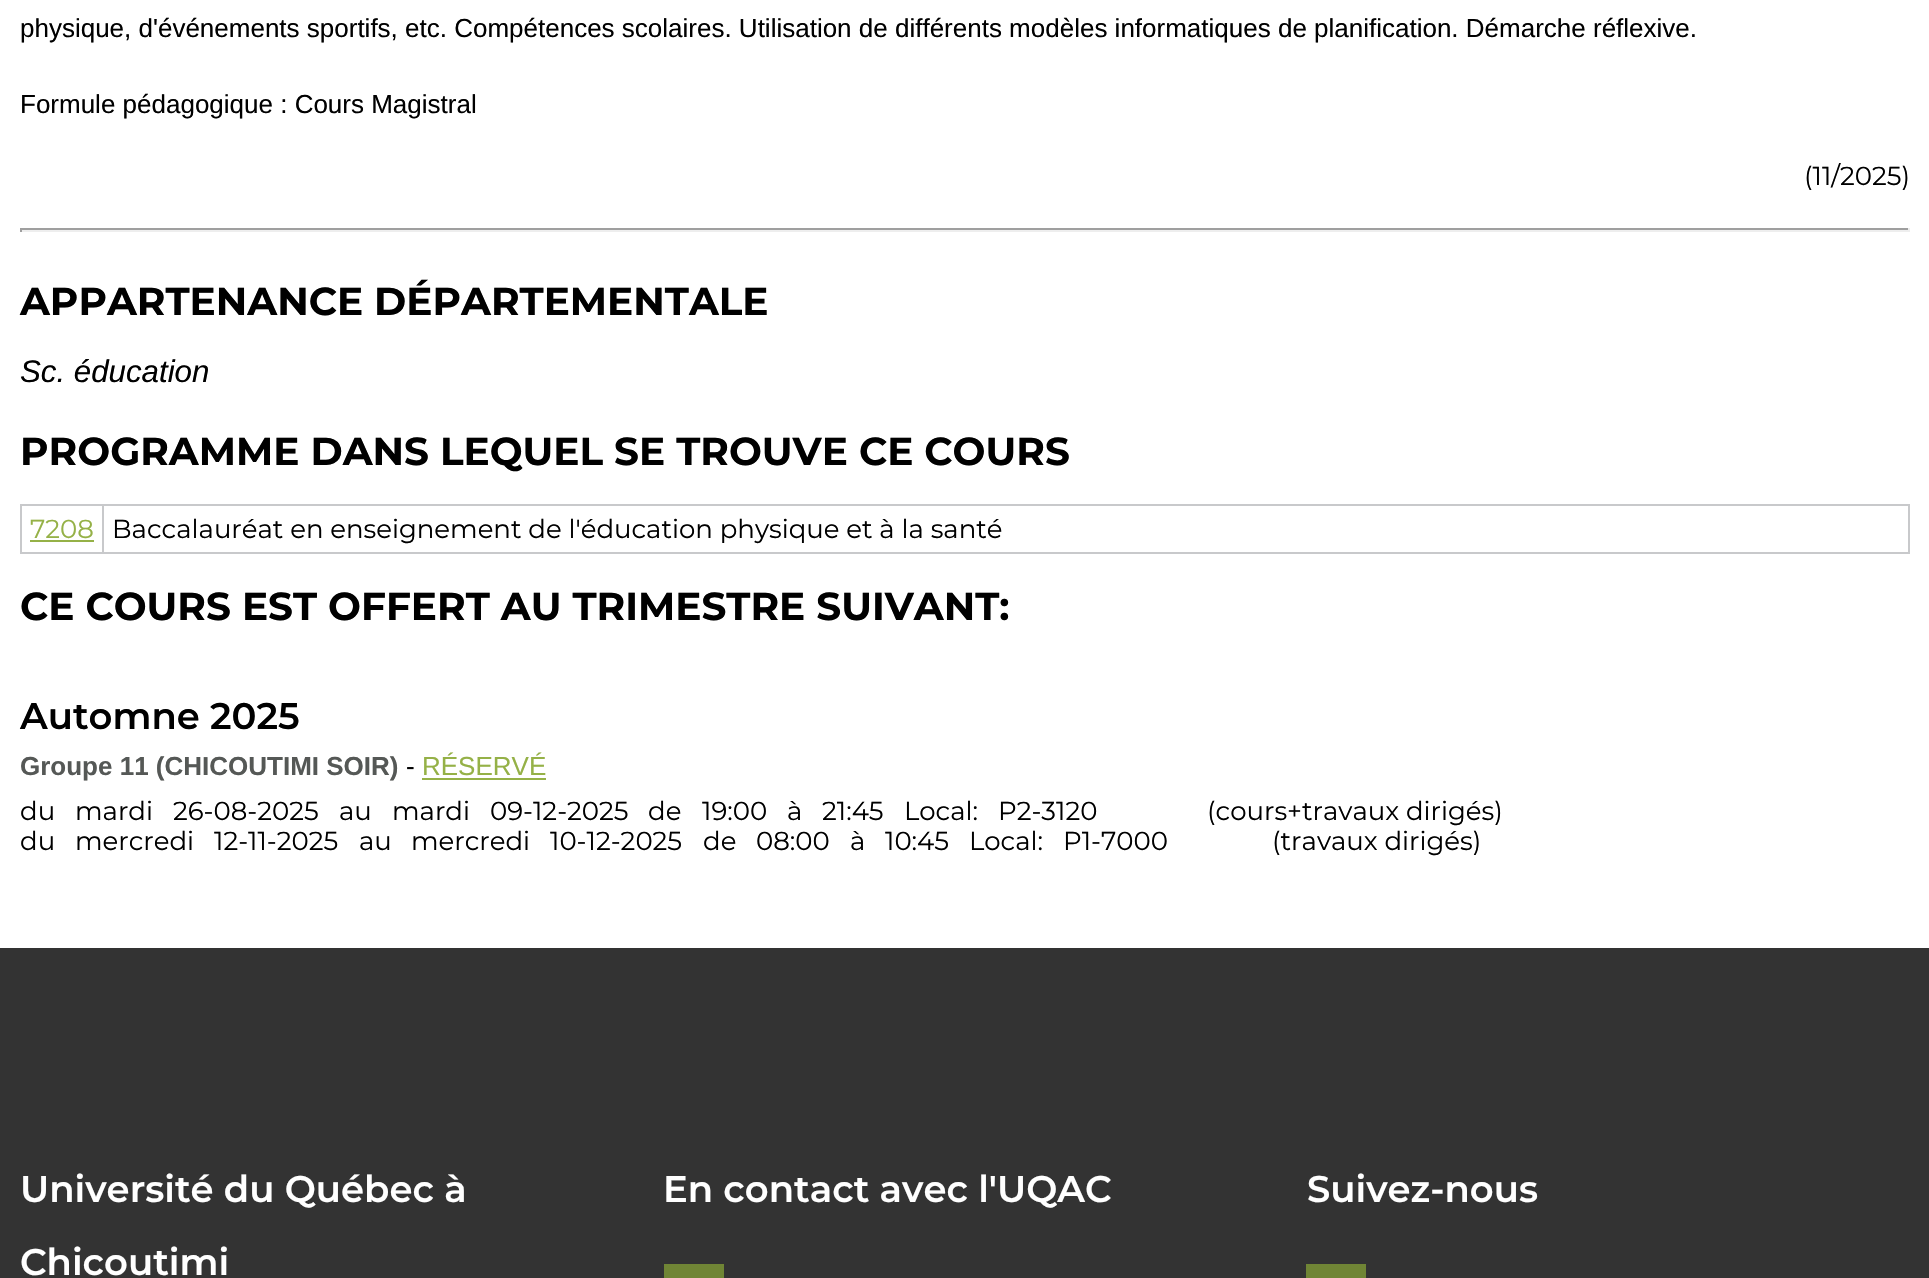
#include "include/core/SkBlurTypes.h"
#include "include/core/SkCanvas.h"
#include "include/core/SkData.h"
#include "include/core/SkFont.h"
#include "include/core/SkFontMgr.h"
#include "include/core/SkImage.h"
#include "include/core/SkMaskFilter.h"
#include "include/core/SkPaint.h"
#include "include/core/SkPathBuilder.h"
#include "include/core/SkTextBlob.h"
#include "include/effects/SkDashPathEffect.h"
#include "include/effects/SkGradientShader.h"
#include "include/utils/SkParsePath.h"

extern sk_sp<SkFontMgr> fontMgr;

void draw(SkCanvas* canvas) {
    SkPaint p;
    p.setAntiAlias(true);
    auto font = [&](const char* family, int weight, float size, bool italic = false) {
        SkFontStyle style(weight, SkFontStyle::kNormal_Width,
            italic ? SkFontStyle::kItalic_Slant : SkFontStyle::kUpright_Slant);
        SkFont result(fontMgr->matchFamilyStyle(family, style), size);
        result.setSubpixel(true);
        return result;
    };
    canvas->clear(0xFFFFFFFF);
    auto font1 = font("Liberation Sans", 400, 26);
    p.setColor(0xFF000000);
    canvas->drawString("physique, d'événements sportifs, etc. Compétences scolaires. Utilisation de différents modèles informatiques de planification. Démarche réflexive.", 20, 37, font1, p);
    canvas->drawString("Formule pédagogique : Cours Magistral", 20, 113, font1, p);
    auto font2 = font("Montserrat", 400, 26);
    canvas->drawString("(11/2025)", 1804, 185, font2, p);
    {
        const struct { float l, t, r, b; SkColor color; } items[] = {
            {20, 228, 1910, 230, 0xFF9F9F9F},
            {1908, 228, 1910, 232, 0xFFEEEEEE},
            {20, 230, 1910, 232, 0xFFEEEEEE},
            {20, 228, 22, 232, 0xFF9F9F9F},
        };
        for (auto [l, t, r, b, color] : items) {
            p.setColor(color);
            canvas->drawRect(SkRect::MakeLTRB(l, t, r, b), p);
        }
    }
    auto font3 = font("Montserrat", 700, 39);
    p.setColor(0xFF000000);
    canvas->drawString("APPARTENANCE DÉPARTEMENTALE", 20, 315, font3, p);
    auto font4 = font("Liberation Sans", 400, 31.25f, true);
    canvas->drawString("Sc. éducation", 20, 382, font4, p);
    canvas->drawString("PROGRAMME DANS LEQUEL SE TROUVE CE COURS", 20, 465, font3, p);
    {
        const struct { float l, t, r, b; SkColor color; } items[] = {
            {20, 504, 1910, 506, 0xFFC8C9CB},
            {20, 504, 22, 554, 0xFFC8C9CB},
            {102, 506, 104, 554, 0xFFC8C9CB},
            {22, 552, 104, 554, 0xFFC8C9CB},
        };
        for (auto [l, t, r, b, color] : items) {
            p.setColor(color);
            canvas->drawRect(SkRect::MakeLTRB(l, t, r, b), p);
        }
    }
    p.setColor(0xFF95B147);
    canvas->drawString("7208", 30, 538, font2, p);
    {
        const struct { float l, t, r, b; SkColor color; } items[] = {
            {30, 540, 94, 542, 0xFF95B147},
            {1908, 506, 1910, 554, 0xFFC8C9CB},
            {104, 552, 1910, 554, 0xFFC8C9CB},
        };
        for (auto [l, t, r, b, color] : items) {
            p.setColor(color);
            canvas->drawRect(SkRect::MakeLTRB(l, t, r, b), p);
        }
    }
    p.setColor(0xFF000000);
    canvas->drawString("Baccalauréat en enseignement de l'éducation physique et à la santé", 112, 538, font2, p);
    canvas->drawString("CE COURS EST OFFERT AU TRIMESTRE SUIVANT:", 20, 620, font3, p);
    auto font5 = font("Montserrat", 600, 37);
    canvas->drawString("Automne 2025", 20, 729, font5, p);
    auto font6 = font("Liberation Sans", 700, 26);
    p.setColor(0xFF555856);
    canvas->drawString("Groupe 11 (CHICOUTIMI SOIR)", 20, 775, font6, p);
    p.setColor(0xFF000000);
    canvas->drawString("-", 406, 775, font1, p);
    p.setColor(0xFF95B147);
    canvas->drawString("RÉSERVÉ", 422, 775, font1, p);
    canvas->drawRect(SkRect::MakeLTRB(422, 778, 546, 780), p);
    p.setColor(0xFF000000);
    {
        const struct { const char* s; float x, y; } items[] = {
            {"du", 20, 820},
            {"mardi", 75, 820},
            {"26-08-2025", 173, 820},
            {"au", 339, 820},
            {"mardi", 392, 820},
            {"09-12-2025", 490, 820},
            {"de", 648, 820},
            {"19:00", 702, 820},
            {"à", 787, 820},
            {"21:45", 822, 820},
            {"Local:", 904, 820},
            {"P2-3120", 998, 820},
            {"(cours+travaux dirigés)", 1207, 820},
            {"du", 20, 850},
            {"mercredi", 75, 850},
            {"12-11-2025", 214, 850},
            {"au", 359, 850},
            {"mercredi", 411, 850},
            {"10-12-2025", 550, 850},
            {"de", 703, 850},
            {"08:00", 756, 850},
            {"à", 850, 850},
            {"10:45", 885, 850},
            {"Local:", 969, 850},
            {"P1-7000", 1063, 850},
            {"(travaux dirigés)", 1272, 850},
        };
        for (auto [s, x, y] : items) {
            canvas->drawString(s, x, y, font2, p);
        }
    }
    p.setColor(0xFF333333);
    canvas->drawRect(SkRect::MakeLTRB(0, 948, 1929, 1278), p);
    p.setColor(0xFFFFFFFF);
    {
        const struct { const char* s; float x, y; } items[] = {
            {"Université du Québec à", 20, 1202},
            {"Chicoutimi", 20, 1275},
            {"En contact avec l'UQAC", 663, 1202},
        };
        for (auto [s, x, y] : items) {
            canvas->drawString(s, x, y, font5, p);
        }
    }
    p.setColor(0xFF708535);
    canvas->drawRect(SkRect::MakeLTRB(664, 1264, 724, 1278), p);
    p.setColor(0xFFFFFFFF);
    canvas->drawString("Suivez-nous", 1307, 1202, font5, p);
    p.setColor(0xFF708535);
    canvas->drawRect(SkRect::MakeLTRB(1306, 1264, 1366, 1278), p);
}
